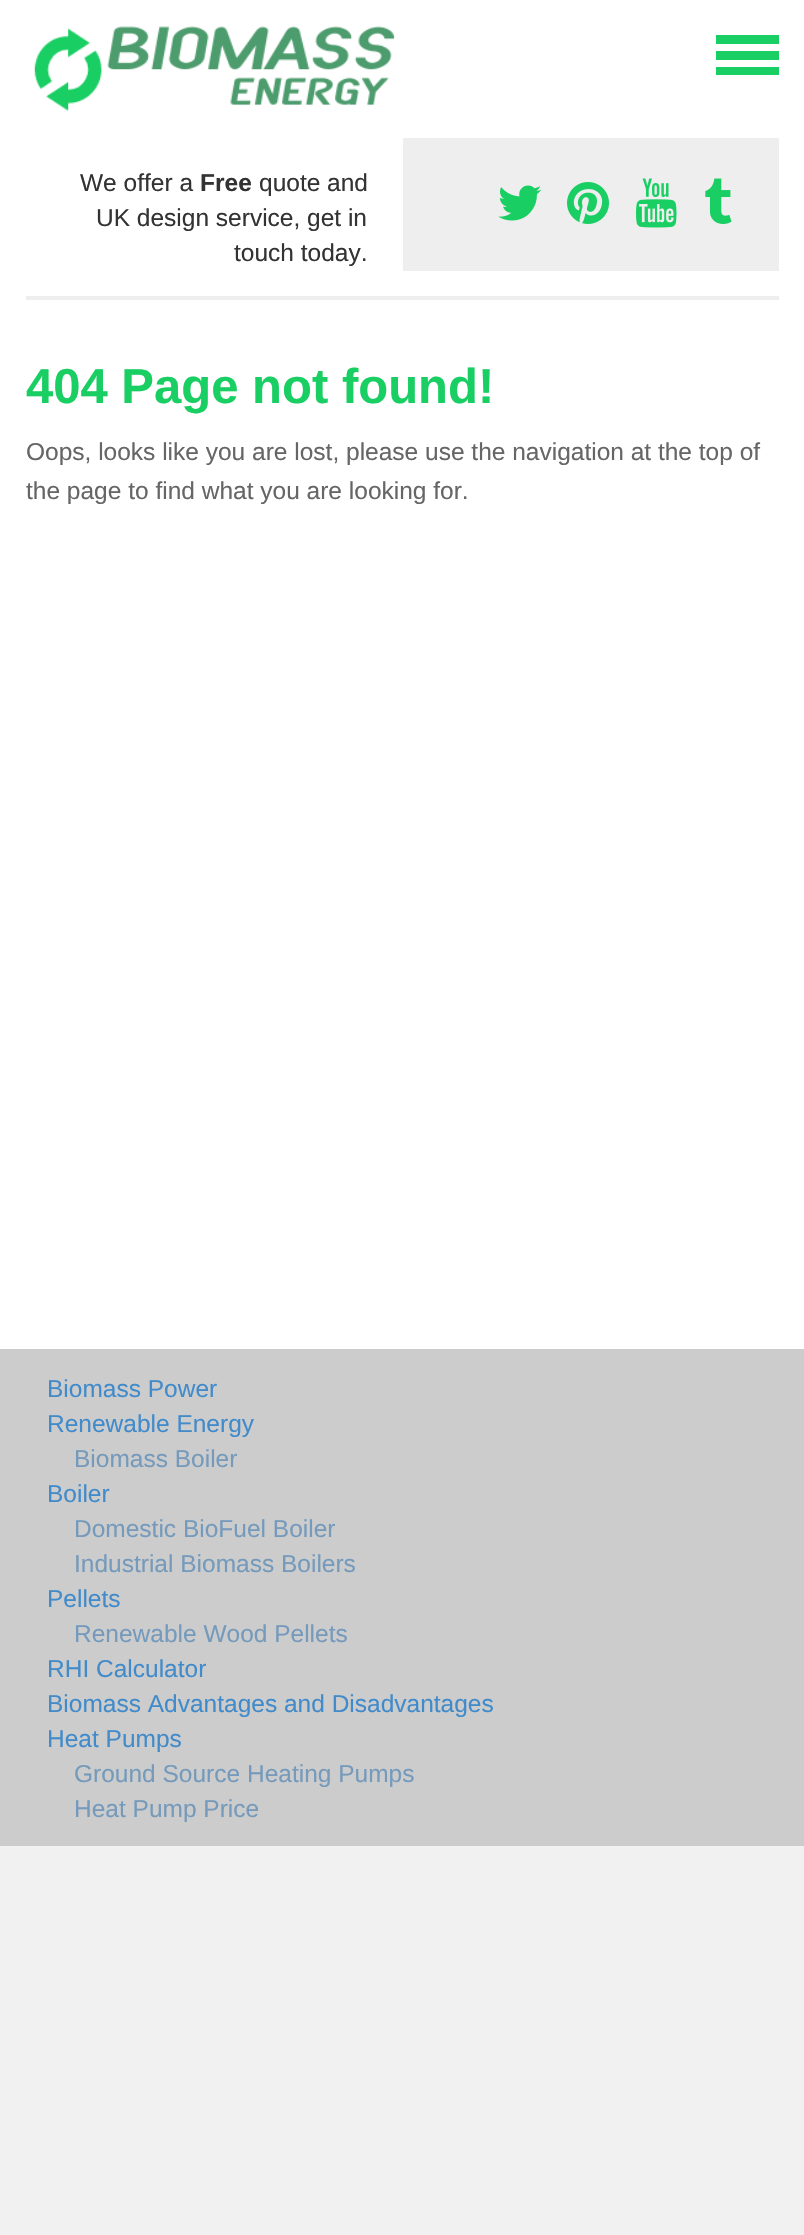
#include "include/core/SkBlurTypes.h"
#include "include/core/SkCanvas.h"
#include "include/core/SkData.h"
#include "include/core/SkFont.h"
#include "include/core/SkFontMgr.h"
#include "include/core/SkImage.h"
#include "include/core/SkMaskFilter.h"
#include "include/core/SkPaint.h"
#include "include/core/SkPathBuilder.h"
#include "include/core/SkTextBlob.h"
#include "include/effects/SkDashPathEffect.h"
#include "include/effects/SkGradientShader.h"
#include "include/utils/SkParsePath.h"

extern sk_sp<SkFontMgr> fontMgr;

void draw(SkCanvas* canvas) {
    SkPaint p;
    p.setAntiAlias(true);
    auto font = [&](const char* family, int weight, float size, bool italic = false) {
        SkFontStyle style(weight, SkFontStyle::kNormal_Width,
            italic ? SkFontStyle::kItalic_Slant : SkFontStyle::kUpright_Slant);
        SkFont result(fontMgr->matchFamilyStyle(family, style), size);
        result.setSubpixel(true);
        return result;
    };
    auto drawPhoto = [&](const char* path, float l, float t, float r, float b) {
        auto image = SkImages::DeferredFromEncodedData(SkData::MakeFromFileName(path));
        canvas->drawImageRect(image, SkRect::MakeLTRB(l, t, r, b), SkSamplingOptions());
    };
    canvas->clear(0xFFF1F1F1);
    p.setColor(0xFFFFFFFF);
    canvas->drawRect(SkRect::MakeLTRB(0, 0, 804, 1349), p);
    drawPhoto("media/1.png", 34, 26, 395, 111);
    {
        const struct { float l, t, r, b; SkColor color; } items[] = {
            {26, 296, 779, 300, 0xFFEEEEEE},
            {716, 35, 779, 44, 0xFF19CE62},
            {716, 51, 779, 60, 0xFF19CE62},
            {716, 67, 779, 75, 0xFF19CE62},
        };
        for (auto [l, t, r, b, color] : items) {
            p.setColor(color);
            canvas->drawRect(SkRect::MakeLTRB(l, t, r, b), p);
        }
    }
    auto font1 = font("Liberation Sans", 400, 24.5f);
    p.setColor(0xFF333333);
    canvas->drawString("We offer a", 80, 191, font1, p);
    auto font2 = font("Liberation Sans", 700, 24.5f);
    canvas->drawString("Free", 200, 191, font2, p);
    {
        const struct { const char* s; float x, y; } items[] = {
            {"quote and", 259, 191},
            {"UK design service, get in", 96, 226},
            {"touch today.", 234, 261},
        };
        for (auto [s, x, y] : items) {
            canvas->drawString(s, x, y, font1, p);
        }
    }
    p.setColor(0xFFEEEEEE);
    canvas->drawRect(SkRect::MakeLTRB(403, 138, 779, 271), p);
    drawPhoto("media/2.png", 498, 185, 542, 221);
    drawPhoto("media/3.png", 567, 182, 609, 224);
    drawPhoto("media/4.png", 636, 178, 677, 228);
    drawPhoto("media/5.png", 705, 178, 732, 224);
    auto font3 = font("Liberation Sans", 700, 49);
    p.setColor(0xFF19CE62);
    canvas->drawString("404 Page not found!", 26, 403, font3, p);
    p.setColor(0xFF666666);
    canvas->drawString("Oops, looks like you are lost, please use the navigation at the top of", 26, 460, font1, p);
    canvas->drawString("the page to find what you are looking for.", 26, 499, font1, p);
    p.setColor(0xFFCCCCCC);
    canvas->drawRect(SkRect::MakeLTRB(0, 1349, 804, 1846), p);
    p.setColor(0xFF428BCA);
    canvas->drawString("Biomass Power", 47, 1397, font1, p);
    canvas->drawString("Renewable Energy", 47, 1432, font1, p);
    p.setColor(0xFF759ABB);
    canvas->drawString("Biomass Boiler", 74, 1467, font1, p);
    p.setColor(0xFF428BCA);
    canvas->drawString("Boiler", 47, 1502, font1, p);
    p.setColor(0xFF759ABB);
    canvas->drawString("Domestic BioFuel Boiler", 74, 1537, font1, p);
    canvas->drawString("Industrial Biomass Boilers", 74, 1572, font1, p);
    p.setColor(0xFF428BCA);
    canvas->drawString("Pellets", 47, 1607, font1, p);
    p.setColor(0xFF759ABB);
    canvas->drawString("Renewable Wood Pellets", 74, 1642, font1, p);
    p.setColor(0xFF428BCA);
    {
        const struct { const char* s; float x, y; } items[] = {
            {"RHI Calculator", 47, 1677},
            {"Biomass Advantages and Disadvantages", 47, 1712},
            {"Heat Pumps", 47, 1747},
        };
        for (auto [s, x, y] : items) {
            canvas->drawString(s, x, y, font1, p);
        }
    }
    p.setColor(0xFF759ABB);
    canvas->drawString("Ground Source Heating Pumps", 74, 1782, font1, p);
    canvas->drawString("Heat Pump Price", 74, 1817, font1, p);
}
